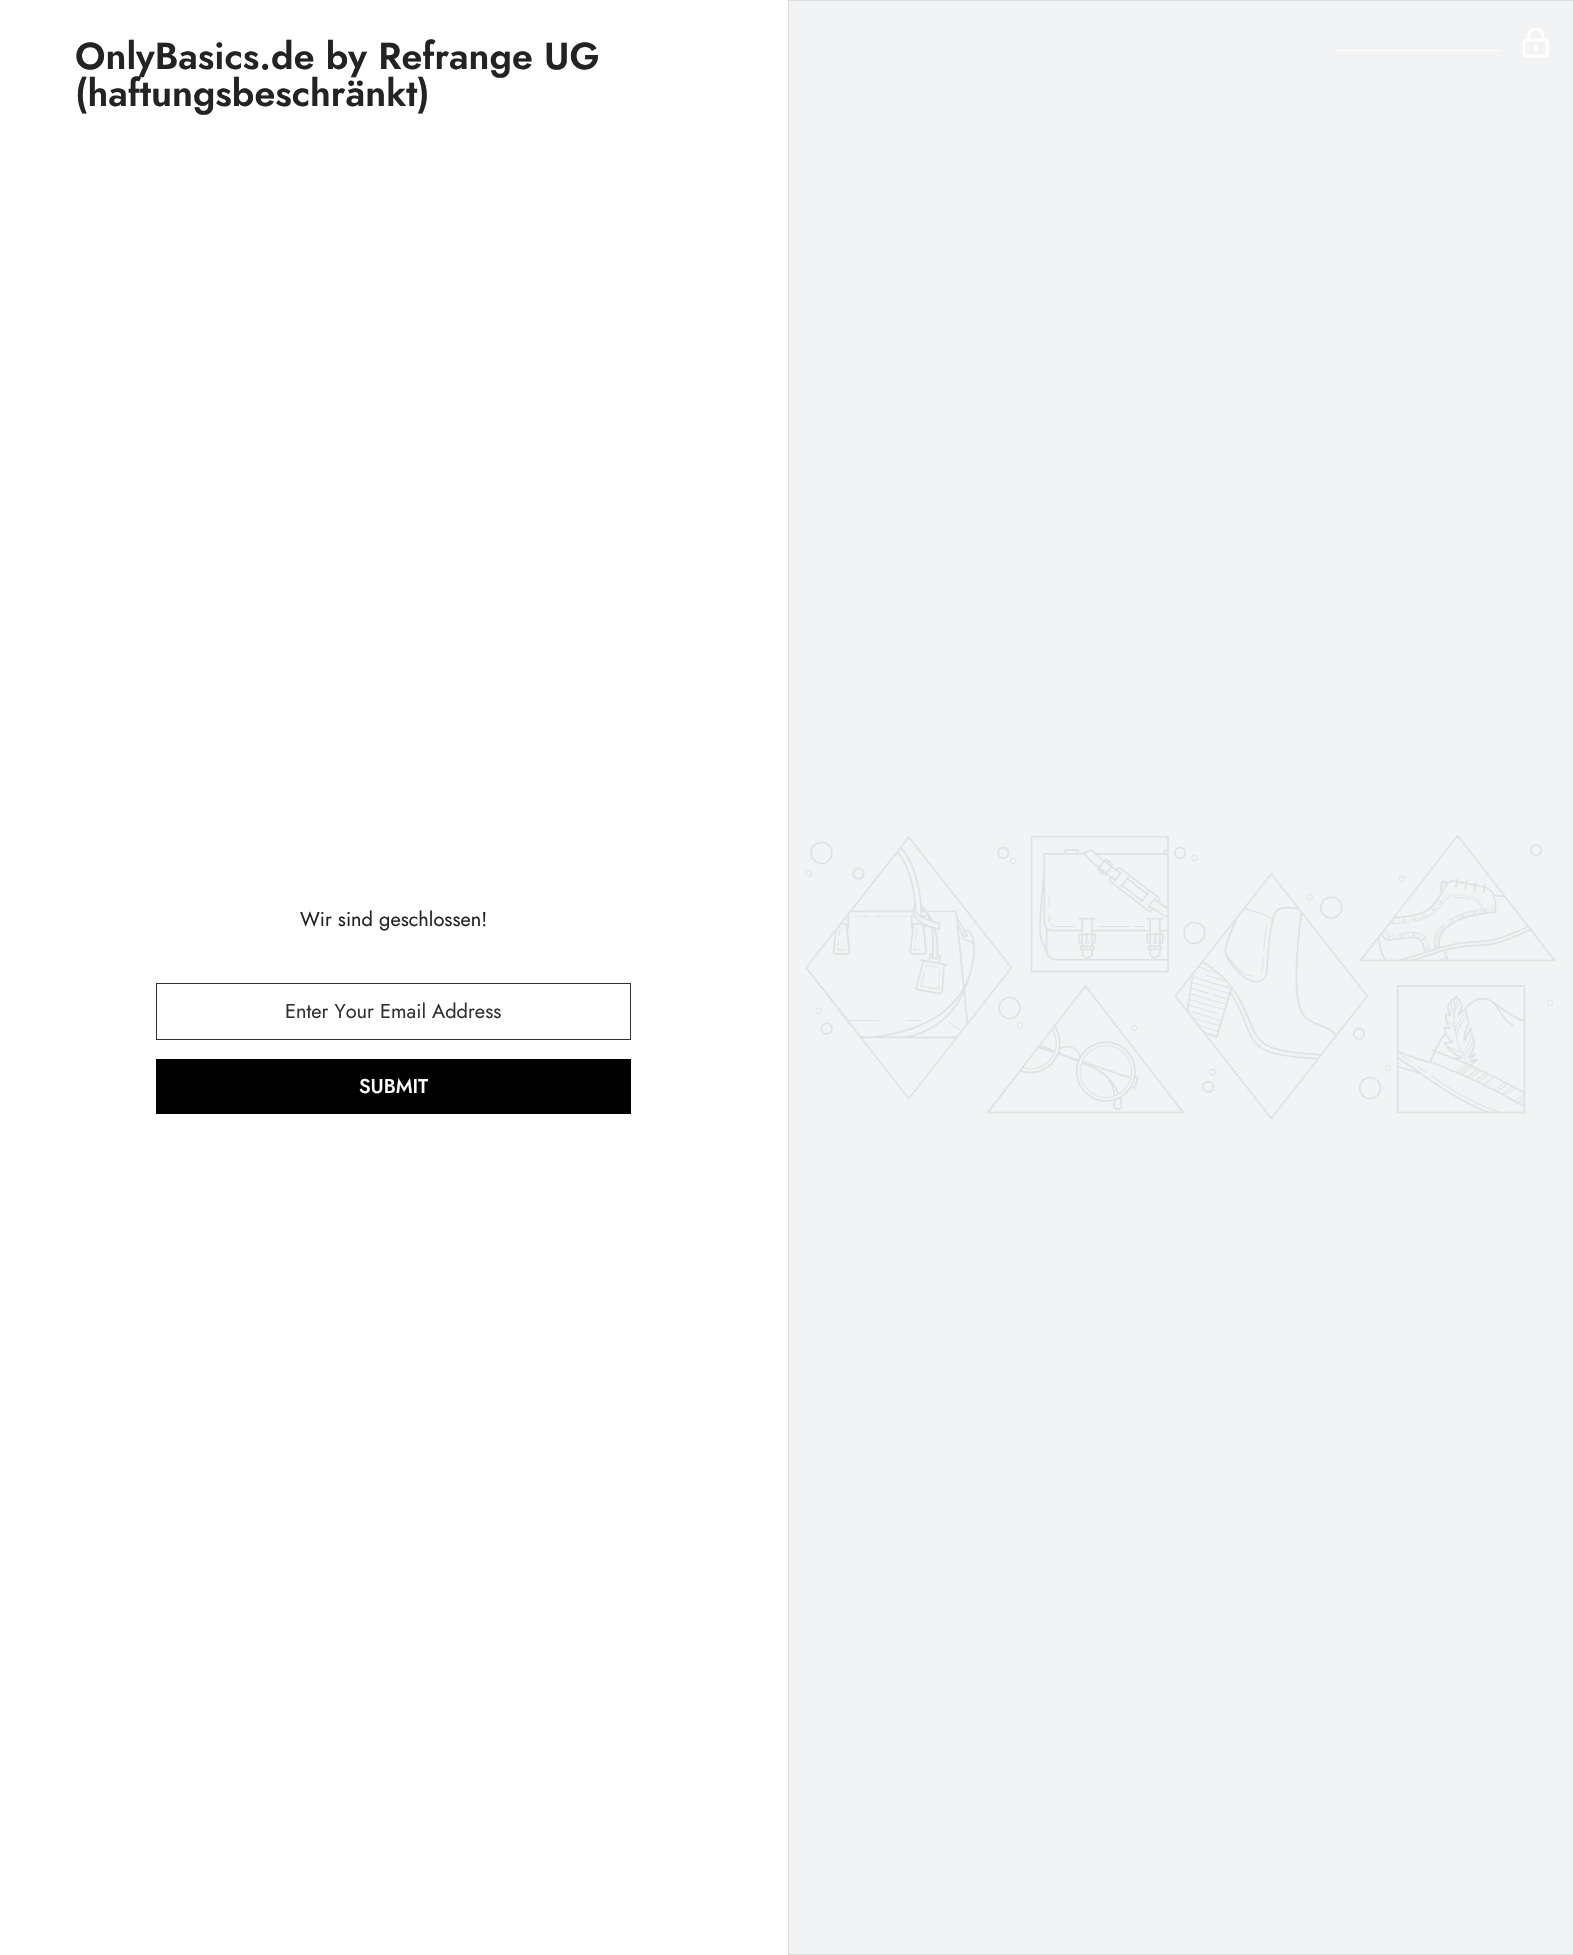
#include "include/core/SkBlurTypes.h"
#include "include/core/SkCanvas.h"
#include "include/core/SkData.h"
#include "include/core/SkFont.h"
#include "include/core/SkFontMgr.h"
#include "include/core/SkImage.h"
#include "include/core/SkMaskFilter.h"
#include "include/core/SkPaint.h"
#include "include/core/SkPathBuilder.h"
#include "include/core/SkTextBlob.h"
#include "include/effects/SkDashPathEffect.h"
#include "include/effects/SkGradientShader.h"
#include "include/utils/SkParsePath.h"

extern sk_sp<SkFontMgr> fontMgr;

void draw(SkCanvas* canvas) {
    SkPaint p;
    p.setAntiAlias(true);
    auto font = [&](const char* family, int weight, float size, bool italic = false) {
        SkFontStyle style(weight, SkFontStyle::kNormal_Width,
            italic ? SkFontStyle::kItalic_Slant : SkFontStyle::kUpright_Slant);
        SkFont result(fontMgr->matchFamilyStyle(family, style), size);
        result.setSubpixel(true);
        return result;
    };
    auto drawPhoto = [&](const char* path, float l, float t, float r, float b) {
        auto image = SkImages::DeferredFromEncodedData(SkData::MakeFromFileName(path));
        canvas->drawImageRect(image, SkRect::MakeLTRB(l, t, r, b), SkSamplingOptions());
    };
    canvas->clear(0xFFFFFFFF);
    auto font1 = font("Jost", 600, 37.5f);
    p.setColor(0xFF232323);
    canvas->drawString("OnlyBasics.de by Refrange UG", 75, 69, font1, p);
    canvas->drawString("(haftungsbeschränkt)", 75, 106, font1, p);
    auto font2 = font("Jost", 400, 20);
    canvas->drawString("Wir sind geschlossen!", 300, 926, font2, p);
    p.setStyle(SkPaint::kStroke_Style);
    p.setStrokeWidth(1);
    p.setColor(0xFF323232);
    canvas->drawRect(SkRect::MakeLTRB(156.5f, 983.5f, 630.5f, 1039.5f), p);
    p.setStyle(SkPaint::kFill_Style);
    canvas->drawString("Enter Your Email Address", 285, 1018, font2, p);
    p.setColor(0xFF000000);
    canvas->drawRect(SkRect::MakeLTRB(156, 1059, 631, 1114), p);
    auto font3 = font("Jost", 500, 20);
    p.setColor(0xFFFFFFFF);
    canvas->drawString("SUBMIT", 359, 1093, font3, p);
    p.setColor(0xFFF2F3F4);
    canvas->drawRect(SkRect::MakeLTRB(788.5f, 0.5f, 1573.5f, 1954.5f), p);
    p.setStyle(SkPaint::kStroke_Style);
    p.setColor(0xFFDADCDE);
    canvas->drawRect(SkRect::MakeLTRB(788.5f, 0.5f, 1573.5f, 1954.5f), p);
    drawPhoto("media/1.png", 805, 835, 1556, 1119);
    p.setStyle(SkPaint::kFill_Style);
    p.setColor(0xFFFFFFFF);
    canvas->drawRect(SkRect::MakeLTRB(1335, 50, 1500, 51), p);
    drawPhoto("media/2.png", 1523, 28, 1549, 58);
}
